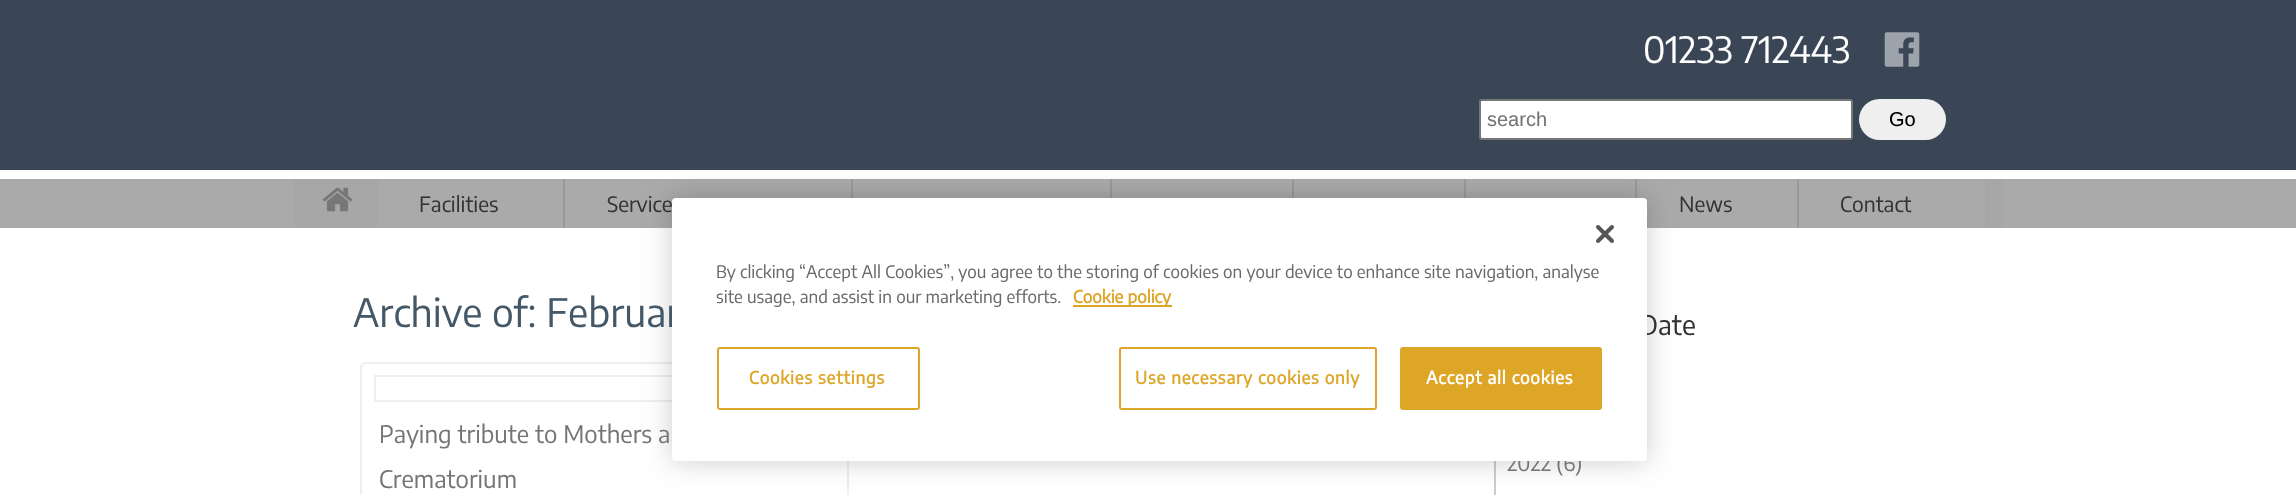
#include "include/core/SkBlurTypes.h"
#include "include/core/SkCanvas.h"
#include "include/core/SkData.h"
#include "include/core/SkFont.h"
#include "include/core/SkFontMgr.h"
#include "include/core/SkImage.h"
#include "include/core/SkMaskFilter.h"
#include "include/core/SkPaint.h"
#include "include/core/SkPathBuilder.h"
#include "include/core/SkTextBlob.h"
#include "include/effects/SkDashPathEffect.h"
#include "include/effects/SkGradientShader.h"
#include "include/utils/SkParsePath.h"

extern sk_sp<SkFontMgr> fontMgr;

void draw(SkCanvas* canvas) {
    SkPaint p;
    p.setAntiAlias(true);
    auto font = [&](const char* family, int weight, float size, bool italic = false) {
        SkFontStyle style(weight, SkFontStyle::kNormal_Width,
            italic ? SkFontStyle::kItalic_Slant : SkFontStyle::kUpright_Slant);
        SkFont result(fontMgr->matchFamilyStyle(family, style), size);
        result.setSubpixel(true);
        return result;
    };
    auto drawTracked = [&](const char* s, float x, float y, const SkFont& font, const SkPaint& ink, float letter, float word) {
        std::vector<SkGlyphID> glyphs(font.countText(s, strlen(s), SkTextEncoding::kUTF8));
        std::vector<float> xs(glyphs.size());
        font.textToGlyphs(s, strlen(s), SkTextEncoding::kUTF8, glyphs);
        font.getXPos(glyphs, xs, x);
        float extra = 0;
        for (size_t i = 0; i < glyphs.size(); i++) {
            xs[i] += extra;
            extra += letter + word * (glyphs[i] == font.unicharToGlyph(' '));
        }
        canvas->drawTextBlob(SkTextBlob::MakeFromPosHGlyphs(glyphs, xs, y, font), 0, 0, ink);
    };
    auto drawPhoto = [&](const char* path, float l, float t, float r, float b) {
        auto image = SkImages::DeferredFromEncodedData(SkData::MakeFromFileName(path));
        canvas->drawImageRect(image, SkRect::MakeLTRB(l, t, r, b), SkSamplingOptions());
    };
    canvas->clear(0xFFFFFFFF);
    p.setColor(0xFF3A4556);
    canvas->drawRect(SkRect::MakeLTRB(0, 0, 2296, 170), p);
    auto font1 = font("Encode Sans Condensed", 100, 36);
    p.setColor(0xFFFFFFFF);
    canvas->drawString("01233 712443", 1643, 63, font1, p);
    drawPhoto("media/1.png", 1884, 32, 1920, 67);
    canvas->drawRoundRect(SkRect::MakeLTRB(1480, 100, 1852, 139), 2, 2, p);
    p.setStyle(SkPaint::kStroke_Style);
    p.setStrokeWidth(2);
    p.setColor(0xFF767676);
    canvas->drawRoundRect(SkRect::MakeLTRB(1480, 100, 1852, 139), 2, 2, p);
    auto font2 = font("Liberation Sans", 400, 20);
    p.setStyle(SkPaint::kFill_Style);
    p.setColor(0xFF757575);
    canvas->drawString("search", 1487, 126, font2, p);
    p.setColor(0xFFEFEFEF);
    canvas->drawRoundRect(SkRect::MakeLTRB(1859, 99, 1946, 140), 20.5f, 20.5f, p);
    p.setColor(0xFF000000);
    canvas->drawString("Go", 1889, 126, font2, p);
    p.setColor(0xFFAAAAAA);
    canvas->drawRect(SkRect::MakeLTRB(0, 179, 2296, 228), p);
    p.setColor(0xFFA7A7A7);
    canvas->drawRect(SkRect::MakeLTRB(294, 179, 2004, 228), p);
    drawPhoto("media/2.png", 322, 187, 353, 212);
    {
        const struct { float l, t, r, b; SkColor color; } items[] = {
            {853, 179, 1110, 198, 0xFFAAAAAA},
            {851, 179, 853, 198, 0xFF999999},
            {1112, 179, 1292, 198, 0xFFAAAAAA},
            {1110, 179, 1112, 198, 0xFF999999},
            {1294, 179, 1464, 198, 0xFFAAAAAA},
            {1292, 179, 1294, 198, 0xFF999999},
            {1466, 179, 1635, 198, 0xFFAAAAAA},
            {1464, 179, 1466, 198, 0xFF999999},
            {378, 179, 563, 228, 0xFFAAAAAA},
        };
        for (auto [l, t, r, b, color] : items) {
            p.setColor(color);
            canvas->drawRect(SkRect::MakeLTRB(l, t, r, b), p);
        }
    }
    auto font3 = font("Encode Sans Condensed", 100, 21);
    p.setColor(0xFF333333);
    canvas->drawString("Facilities", 419, 212, font3, p);
    p.setColor(0xFFAAAAAA);
    canvas->drawRect(SkRect::MakeLTRB(565, 179, 851, 228), p);
    p.setColor(0xFF999999);
    canvas->drawRect(SkRect::MakeLTRB(563, 179, 565, 228), p);
    p.setColor(0xFF333333);
    canvas->drawString("Service", 607, 212, font3, p);
    p.setColor(0xFFAAAAAA);
    canvas->drawRect(SkRect::MakeLTRB(1637, 179, 1797, 228), p);
    p.setColor(0xFF999999);
    canvas->drawRect(SkRect::MakeLTRB(1635, 179, 1637, 198), p);
    p.setColor(0xFF333333);
    canvas->drawString("News", 1679, 212, font3, p);
    p.setColor(0xFFAAAAAA);
    canvas->drawRect(SkRect::MakeLTRB(1799, 179, 1985, 228), p);
    p.setColor(0xFF999999);
    canvas->drawRect(SkRect::MakeLTRB(1797, 179, 1799, 228), p);
    p.setColor(0xFF333333);
    canvas->drawString("Contact", 1840, 212, font3, p);
    p.setStyle(SkPaint::kStroke_Style);
    p.setColor(0xFFEEEEEE);
    canvas->drawRoundRect(SkRect::MakeLTRB(361, 363, 848, 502), 5, 5, p);
    canvas->drawRect(SkRect::MakeLTRB(375, 376, 835, 401), p);
    p.setStyle(SkPaint::kFill_Style);
    p.setColor(0xFFCCCCCC);
    canvas->drawRect(SkRect::MakeLTRB(1494, 461, 1496, 495), p);
    p.setColor(0x33000000);
    p.setMaskFilter(SkMaskFilter::MakeBlur(kNormal_SkBlurStyle, 13.5f));
    canvas->drawRoundRect(SkRect::MakeLTRB(672, 198, 1647, 461), 4, 4, p);
    p.setMaskFilter(nullptr);
    auto font4 = font("Encode Sans Condensed", 100, 39);
    p.setColor(0xFF445868);
    canvas->drawString("Archive of: Februar", 353, 327, font4, p);
    auto font5 = font("Encode Sans Condensed", 100, 27);
    p.setColor(0xFF333333);
    canvas->drawString("Date", 1639, 335, font5, p);
    p.setColor(0xFF757575);
    canvas->drawString("2022 (6)", 1507, 471, font3, p);
    p.setColor(0xFFFFFFFF);
    canvas->drawRoundRect(SkRect::MakeLTRB(672, 198, 1647, 461), 4, 4, p);
    drawPhoto("media/3.png", 1596, 225, 1614, 243);
    auto font6 = font("Encode Sans Condensed", 100, 17.07f);
    p.setColor(0xFF696969);
    canvas->drawString("By clicking “Accept All Cookies”, you agree to the storing of cookies on your device to enhance site navigation, analyse", 716, 278, font6, p);
    canvas->drawString("site usage, and assist in our marketing efforts.", 716, 303, font6, p);
    p.setColor(0xFFDDA627);
    canvas->drawRect(SkRect::MakeLTRB(1073, 305, 1172, 307), p);
    auto font7 = font("Encode Sans Condensed", 700, 17.07f);
    canvas->drawString("Cookie policy", 1073, 303, font7, p);
    p.setStyle(SkPaint::kStroke_Style);
    canvas->drawRoundRect(SkRect::MakeLTRB(718, 348, 919, 409), 2, 2, p);
    p.setStyle(SkPaint::kFill_Style);
    drawTracked("Cookies settings", 749, 384, font7, p, 0.85f, 0);
    p.setStyle(SkPaint::kStroke_Style);
    canvas->drawRoundRect(SkRect::MakeLTRB(1120, 348, 1376, 409), 2, 2, p);
    p.setStyle(SkPaint::kFill_Style);
    drawTracked("Use necessary cookies only", 1135, 384, font7, p, 0.85f, 0);
    canvas->drawRoundRect(SkRect::MakeLTRB(1401, 348, 1601, 409), 2, 2, p);
    p.setStyle(SkPaint::kStroke_Style);
    canvas->drawRoundRect(SkRect::MakeLTRB(1401, 348, 1601, 409), 2, 2, p);
    p.setStyle(SkPaint::kFill_Style);
    p.setColor(0xFFFFFFFF);
    drawTracked("Accept all cookies", 1426, 384, font7, p, 0.85f, 0);
    auto font8 = font("Encode Sans Condensed", 100, 24);
    p.setColor(0xFF757575);
    canvas->drawString("Paying tribute to Mothers a", 379, 443, font8, p);
    canvas->drawString("Crematorium", 379, 488, font8, p);
}
